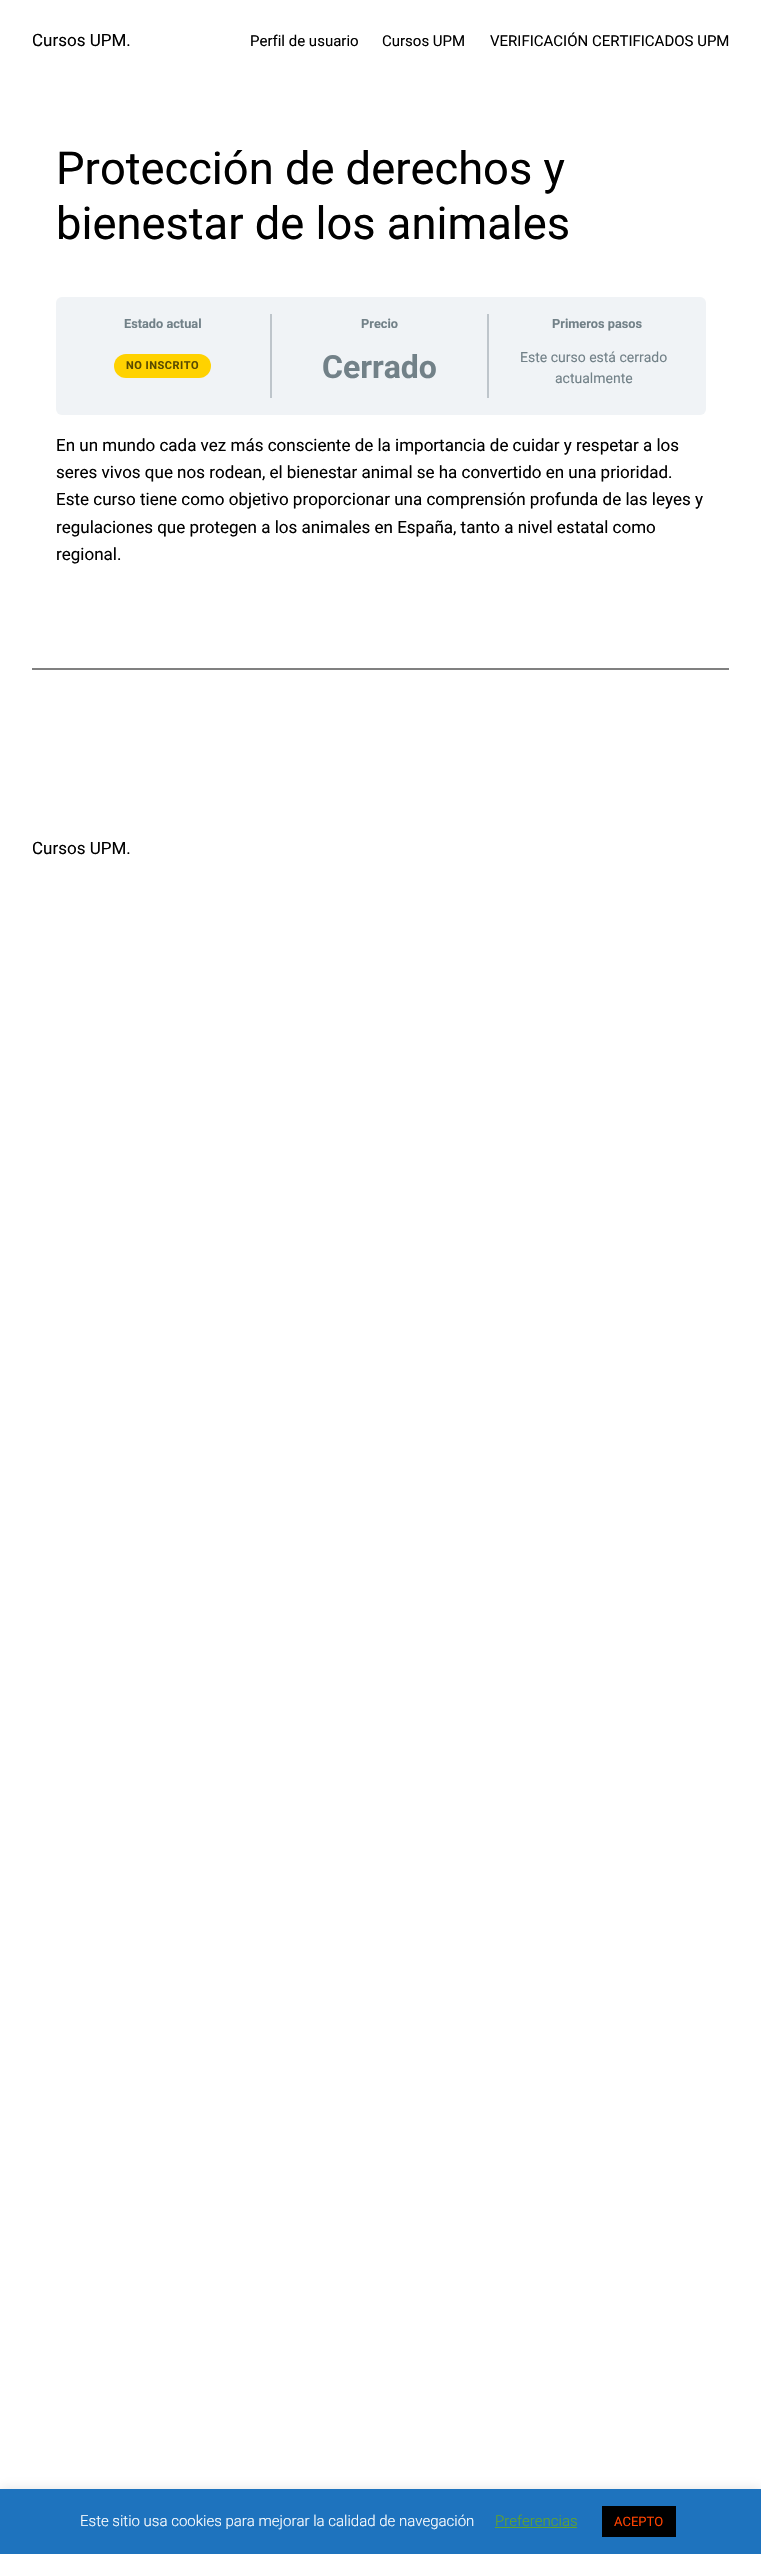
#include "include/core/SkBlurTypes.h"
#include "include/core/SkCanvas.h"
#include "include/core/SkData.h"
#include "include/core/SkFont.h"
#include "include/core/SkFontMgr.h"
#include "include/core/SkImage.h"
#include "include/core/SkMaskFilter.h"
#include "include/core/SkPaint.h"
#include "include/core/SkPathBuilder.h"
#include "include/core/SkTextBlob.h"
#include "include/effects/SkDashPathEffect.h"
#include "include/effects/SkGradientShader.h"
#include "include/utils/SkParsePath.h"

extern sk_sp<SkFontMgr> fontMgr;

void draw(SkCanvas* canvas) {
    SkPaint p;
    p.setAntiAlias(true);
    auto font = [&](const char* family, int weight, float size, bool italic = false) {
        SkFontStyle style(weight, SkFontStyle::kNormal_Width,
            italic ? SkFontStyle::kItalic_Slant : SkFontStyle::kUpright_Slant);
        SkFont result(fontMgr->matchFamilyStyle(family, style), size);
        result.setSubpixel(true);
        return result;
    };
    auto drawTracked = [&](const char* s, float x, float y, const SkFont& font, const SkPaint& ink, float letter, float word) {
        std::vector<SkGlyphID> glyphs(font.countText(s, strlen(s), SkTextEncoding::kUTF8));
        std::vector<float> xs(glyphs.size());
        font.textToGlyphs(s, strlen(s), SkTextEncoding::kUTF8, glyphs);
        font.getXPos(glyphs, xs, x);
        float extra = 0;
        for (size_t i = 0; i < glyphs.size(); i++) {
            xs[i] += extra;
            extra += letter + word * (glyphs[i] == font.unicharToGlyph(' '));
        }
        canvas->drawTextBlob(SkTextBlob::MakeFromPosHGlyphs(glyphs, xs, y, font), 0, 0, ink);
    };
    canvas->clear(0xFFFFFFFF);
    auto font1 = font("Roboto", 400, 17);
    p.setColor(0xFF000000);
    canvas->drawString("Cursos UPM.", 32, 46, font1, p);
    auto font2 = font("Roboto", 400, 15);
    {
        const struct { const char* s; float x, y; } items[] = {
            {"Perfil de usuario", 250, 46},
            {"Cursos UPM", 382, 46},
            {"VERIFICACIÓN CERTIFICADOS UPM", 490, 46},
        };
        for (auto [s, x, y] : items) {
            canvas->drawString(s, x, y, font2, p);
        }
    }
    auto font3 = font("Roboto", 400, 45.25f);
    canvas->drawString("Protección de derechos y", 56, 184, font3, p);
    canvas->drawString("bienestar de los animales", 56, 239, font3, p);
    p.setColor(0xFFF0F3F6);
    canvas->drawRoundRect(SkRect::MakeLTRB(56, 297, 706, 415), 6, 6, p);
    p.setColor(0xFFBEC5CB);
    canvas->drawRect(SkRect::MakeLTRB(270, 314, 272, 398), p);
    auto font4 = font("Roboto", 700, 12.75f);
    p.setColor(0xFF728188);
    canvas->drawString("Estado actual", 124, 328, font4, p);
    p.setColor(0xFFFFD200);
    canvas->drawRoundRect(SkRect::MakeLTRB(114, 354, 211, 378), 12, 12, p);
    auto font5 = font("Roboto", 700, 11);
    p.setColor(0xFF594A00);
    drawTracked("NO INSCRITO", 126, 369, font5, p, 0.5f, 0);
    p.setColor(0xFFBEC5CB);
    canvas->drawRect(SkRect::MakeLTRB(487, 314, 489, 398), p);
    p.setColor(0xFF728188);
    canvas->drawString("Precio", 361, 328, font4, p);
    auto font6 = font("Roboto", 700, 32);
    canvas->drawString("Cerrado", 322, 378, font6, p);
    canvas->drawString("Primeros pasos", 552, 328, font4, p);
    auto font7 = font("Roboto", 400, 14);
    canvas->drawString("Este curso está cerrado", 520, 362, font7, p);
    canvas->drawString("actualmente", 555, 383, font7, p);
    p.setColor(0xFF000000);
    {
        const struct { const char* s; float x, y; } items[] = {
            {"En un mundo cada vez más consciente de la importancia de cuidar y respetar a los", 56, 451},
            {"seres vivos que nos rodean, el bienestar animal se ha convertido en una prioridad.", 56, 478},
            {"Este curso tiene como objetivo proporcionar una comprensión profunda de las leyes y", 56, 505},
            {"regulaciones que protegen a los animales en España, tanto a nivel estatal como", 56, 533},
            {"regional.", 56, 560},
        };
        for (auto [s, x, y] : items) {
            canvas->drawString(s, x, y, font1, p);
        }
    }
    p.setColor(0xFF808080);
    canvas->drawRect(SkRect::MakeLTRB(32, 668, 729, 670), p);
    p.setColor(0xFF000000);
    canvas->drawString("Cursos UPM.", 32, 854, font1, p);
    p.setColor(0x4DACABAB);
    p.setMaskFilter(SkMaskFilter::MakeBlur(kNormal_SkBlurStyle, 5));
    canvas->drawRect(SkRect::MakeLTRB(0, 2488, 761, 2553), p);
    p.setMaskFilter(nullptr);
    p.setColor(0xFF1E73BE);
    canvas->drawRect(SkRect::MakeLTRB(0, 2489, 761, 2554), p);
    auto font8 = font("Roboto", 300, 15);
    p.setColor(0xFFFFFFFF);
    canvas->drawString("Este sitio usa cookies para mejorar la calidad de navegación", 80, 2526, font8, p);
    p.setColor(0xFF62A329);
    canvas->drawString("Preferencias", 495, 2526, font8, p);
    canvas->drawRect(SkRect::MakeLTRB(495, 2527, 577, 2528), p);
    p.setColor(0xFF000000);
    canvas->drawRect(SkRect::MakeLTRB(602, 2506, 676, 2537), p);
    auto font9 = font("Roboto", 400, 13);
    p.setColor(0xFFFF4200);
    canvas->drawString("ACEPTO", 614, 2526, font9, p);
}
